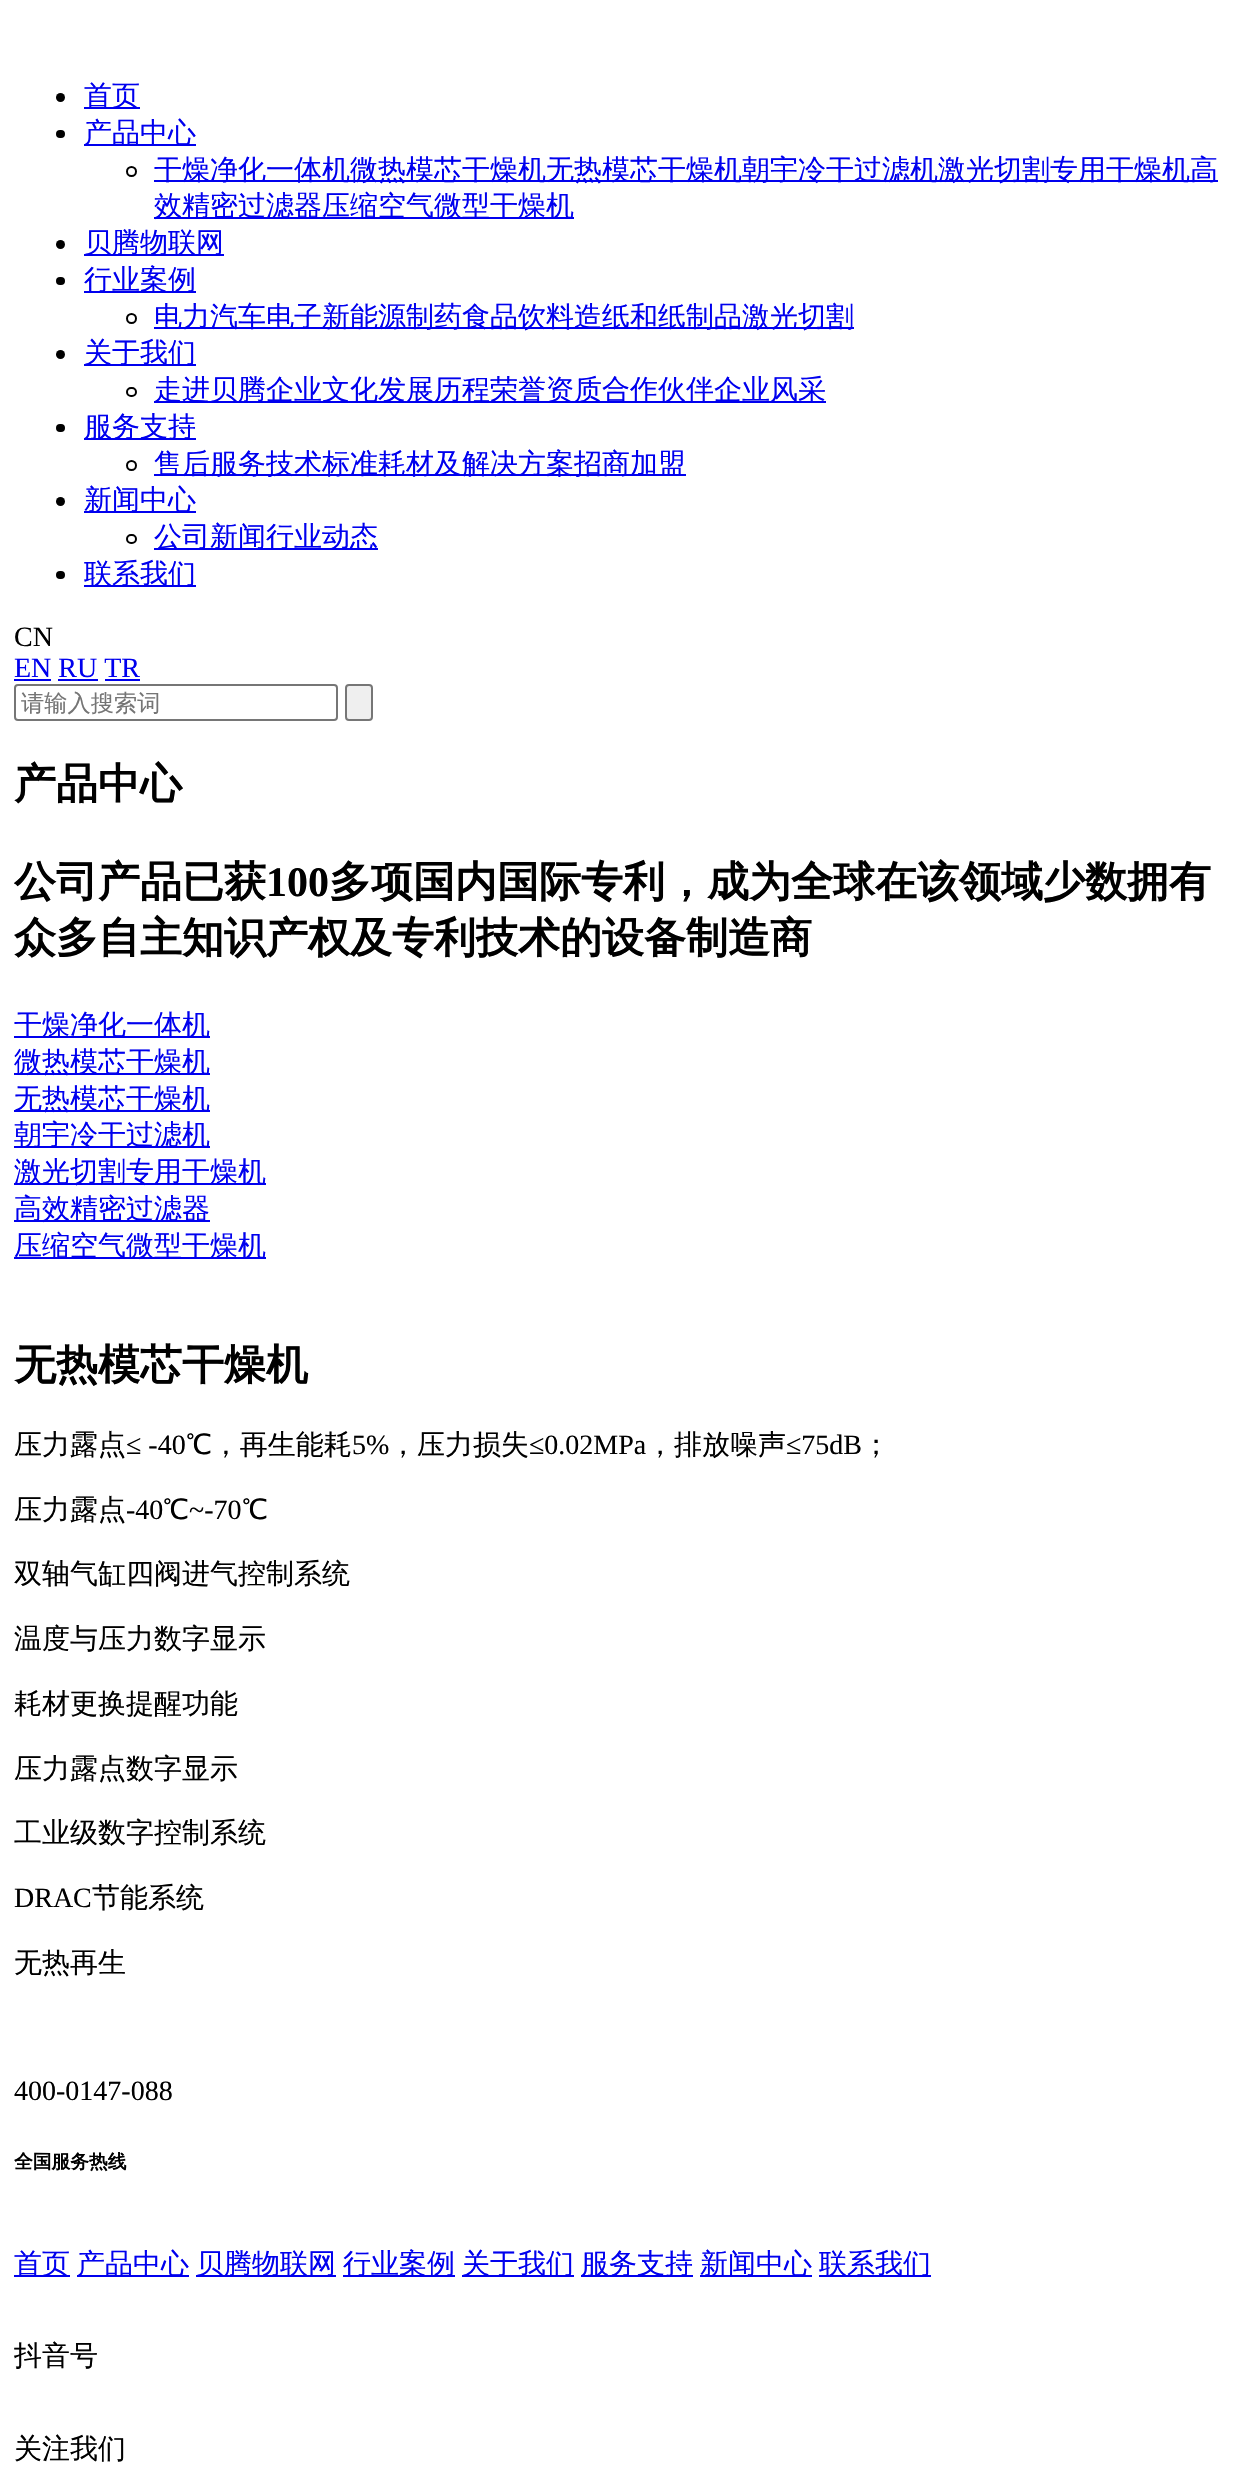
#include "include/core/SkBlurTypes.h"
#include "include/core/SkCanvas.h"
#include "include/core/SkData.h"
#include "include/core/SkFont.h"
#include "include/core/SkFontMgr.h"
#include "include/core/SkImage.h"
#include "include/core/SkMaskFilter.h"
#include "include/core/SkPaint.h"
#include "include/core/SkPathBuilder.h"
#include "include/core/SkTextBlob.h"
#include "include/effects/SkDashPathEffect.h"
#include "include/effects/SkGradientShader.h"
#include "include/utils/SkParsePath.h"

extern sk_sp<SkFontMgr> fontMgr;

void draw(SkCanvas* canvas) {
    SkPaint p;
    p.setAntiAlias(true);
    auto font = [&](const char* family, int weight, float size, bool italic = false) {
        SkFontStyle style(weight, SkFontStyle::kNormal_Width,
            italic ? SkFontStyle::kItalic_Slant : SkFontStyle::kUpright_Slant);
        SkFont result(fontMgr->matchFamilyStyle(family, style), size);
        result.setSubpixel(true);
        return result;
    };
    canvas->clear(0xFFFFFFFF);
    p.setColor(0xFF000000);
    canvas->drawCircle(60.5f, 97.5f, 4.5f, p);
    p.setColor(0xFF0000EE);
    canvas->drawRect(SkRect::MakeLTRB(84, 107, 140, 109), p);
    auto font1 = font("WenQuanYi Zen Hei", 500, 28);
    canvas->drawString("首页", 84, 105, font1, p);
    p.setColor(0xFF000000);
    canvas->drawRoundRect(SkRect::MakeLTRB(56, 130, 65, 138), 4, 4, p);
    p.setColor(0xFF0000EE);
    canvas->drawRect(SkRect::MakeLTRB(84, 144, 196, 146), p);
    canvas->drawString("产品中心", 84, 142, font1, p);
    p.setStyle(SkPaint::kStroke_Style);
    p.setStrokeWidth(2);
    p.setColor(0xFF000000);
    canvas->drawCircle(131.5f, 171.5f, 4.5f, p);
    p.setStyle(SkPaint::kFill_Style);
    p.setColor(0xFF0000EE);
    canvas->drawRect(SkRect::MakeLTRB(154, 180, 1218, 182), p);
    canvas->drawString("干燥净化一体机微热模芯干燥机无热模芯干燥机朝宇冷干过滤机激光切割专用干燥机高", 154, 179, font1, p);
    canvas->drawRect(SkRect::MakeLTRB(154, 217, 574, 219), p);
    canvas->drawString("效精密过滤器压缩空气微型干燥机", 154, 215, font1, p);
    p.setColor(0xFF000000);
    canvas->drawCircle(60.5f, 244.5f, 4.5f, p);
    p.setColor(0xFF0000EE);
    canvas->drawRect(SkRect::MakeLTRB(84, 254, 224, 256), p);
    canvas->drawString("贝腾物联网", 84, 252, font1, p);
    p.setColor(0xFF000000);
    canvas->drawRoundRect(SkRect::MakeLTRB(56, 277, 65, 285), 4, 4, p);
    p.setColor(0xFF0000EE);
    canvas->drawRect(SkRect::MakeLTRB(84, 291, 196, 293), p);
    canvas->drawString("行业案例", 84, 289, font1, p);
    p.setStyle(SkPaint::kStroke_Style);
    p.setColor(0xFF000000);
    canvas->drawCircle(131.5f, 318.5f, 4.5f, p);
    p.setStyle(SkPaint::kFill_Style);
    p.setColor(0xFF0000EE);
    canvas->drawRect(SkRect::MakeLTRB(154, 327, 854, 329), p);
    canvas->drawString("电力汽车电子新能源制药食品饮料造纸和纸制品激光切割", 154, 326, font1, p);
    p.setColor(0xFF000000);
    canvas->drawCircle(60.5f, 354.5f, 4.5f, p);
    p.setColor(0xFF0000EE);
    canvas->drawRect(SkRect::MakeLTRB(84, 364, 196, 366), p);
    canvas->drawString("关于我们", 84, 362, font1, p);
    p.setStyle(SkPaint::kStroke_Style);
    p.setColor(0xFF000000);
    canvas->drawRoundRect(SkRect::MakeLTRB(127, 388, 136, 396), 4, 4, p);
    p.setStyle(SkPaint::kFill_Style);
    p.setColor(0xFF0000EE);
    canvas->drawRect(SkRect::MakeLTRB(154, 401, 826, 403), p);
    canvas->drawString("走进贝腾企业文化发展历程荣誉资质合作伙伴企业风采", 154, 399, font1, p);
    p.setColor(0xFF000000);
    canvas->drawRoundRect(SkRect::MakeLTRB(56, 424, 65, 432), 4, 4, p);
    p.setColor(0xFF0000EE);
    canvas->drawRect(SkRect::MakeLTRB(84, 438, 196, 440), p);
    canvas->drawString("服务支持", 84, 436, font1, p);
    p.setStyle(SkPaint::kStroke_Style);
    p.setColor(0xFF000000);
    canvas->drawCircle(131.5f, 465.5f, 4.5f, p);
    p.setStyle(SkPaint::kFill_Style);
    p.setColor(0xFF0000EE);
    canvas->drawRect(SkRect::MakeLTRB(154, 474, 686, 476), p);
    canvas->drawString("售后服务技术标准耗材及解决方案招商加盟", 154, 473, font1, p);
    p.setColor(0xFF000000);
    canvas->drawCircle(60.5f, 501.5f, 4.5f, p);
    p.setColor(0xFF0000EE);
    canvas->drawRect(SkRect::MakeLTRB(84, 511, 196, 513), p);
    canvas->drawString("新闻中心", 84, 509, font1, p);
    p.setStyle(SkPaint::kStroke_Style);
    p.setColor(0xFF000000);
    canvas->drawRoundRect(SkRect::MakeLTRB(127, 535, 136, 543), 4, 4, p);
    p.setStyle(SkPaint::kFill_Style);
    p.setColor(0xFF0000EE);
    canvas->drawRect(SkRect::MakeLTRB(154, 548, 378, 550), p);
    canvas->drawString("公司新闻行业动态", 154, 546, font1, p);
    p.setColor(0xFF000000);
    canvas->drawRoundRect(SkRect::MakeLTRB(56, 571, 65, 579), 4, 4, p);
    p.setColor(0xFF0000EE);
    canvas->drawRect(SkRect::MakeLTRB(84, 585, 196, 587), p);
    canvas->drawString("联系我们", 84, 583, font1, p);
    auto font2 = font("Liberation Serif", 400, 28);
    p.setColor(0xFF000000);
    canvas->drawString("CN", 14, 646, font2, p);
    p.setColor(0xFF0000EE);
    canvas->drawString("EN RU TR", 14, 677, font2, p);
    {
        const struct { float l, t, r, b; SkColor color; } items[] = {
            {14, 679, 51, 681, 0xFF0000EE},
            {58, 679, 98, 681, 0xFF0000EE},
            {105, 679, 140, 681, 0xFF0000EE},
        };
        for (auto [l, t, r, b, color] : items) {
            p.setColor(color);
            canvas->drawRect(SkRect::MakeLTRB(l, t, r, b), p);
        }
    }
    p.setStyle(SkPaint::kStroke_Style);
    p.setColor(0xFF767676);
    canvas->drawRoundRect(SkRect::MakeLTRB(15, 685, 337, 720), 3, 3, p);
    auto font3 = font("WenQuanYi Zen Hei", 500, 23.25f);
    p.setStyle(SkPaint::kFill_Style);
    p.setColor(0xFF757575);
    canvas->drawString("请输入搜索词", 21, 711, font3, p);
    p.setColor(0xFFEFEFEF);
    canvas->drawRoundRect(SkRect::MakeLTRB(346, 685, 372, 720), 3, 3, p);
    p.setStyle(SkPaint::kStroke_Style);
    p.setColor(0xFF767676);
    canvas->drawRoundRect(SkRect::MakeLTRB(346, 685, 372, 720), 3, 3, p);
    auto font4 = font("WenQuanYi Zen Hei", 700, 42);
    p.setStyle(SkPaint::kFill_Style);
    p.setColor(0xFF000000);
    canvas->drawString("产品中心", 14, 798, font4, p);
    canvas->drawString("公司产品已获", 14, 896, font4, p);
    auto font5 = font("Liberation Serif", 700, 42);
    canvas->drawString("100", 266, 896, font5, p);
    canvas->drawString("多项国内国际专利，成为全球在该领域少数拥有", 329, 896, font4, p);
    canvas->drawString("众多自主知识产权及专利技术的设备制造商", 14, 952, font4, p);
    p.setColor(0xFF0000EE);
    canvas->drawRect(SkRect::MakeLTRB(14, 1036, 210, 1038), p);
    canvas->drawString("干燥净化一体机", 14, 1034, font1, p);
    canvas->drawRect(SkRect::MakeLTRB(14, 1073, 210, 1075), p);
    canvas->drawString("微热模芯干燥机", 14, 1071, font1, p);
    canvas->drawRect(SkRect::MakeLTRB(14, 1110, 210, 1112), p);
    canvas->drawString("无热模芯干燥机", 14, 1108, font1, p);
    canvas->drawRect(SkRect::MakeLTRB(14, 1146, 210, 1148), p);
    canvas->drawString("朝宇冷干过滤机", 14, 1144, font1, p);
    canvas->drawRect(SkRect::MakeLTRB(14, 1183, 266, 1185), p);
    canvas->drawString("激光切割专用干燥机", 14, 1181, font1, p);
    canvas->drawRect(SkRect::MakeLTRB(14, 1220, 210, 1222), p);
    canvas->drawString("高效精密过滤器", 14, 1218, font1, p);
    canvas->drawRect(SkRect::MakeLTRB(14, 1257, 266, 1259), p);
    canvas->drawString("压缩空气微型干燥机", 14, 1255, font1, p);
    p.setColor(0xFF000000);
    canvas->drawString("无热模芯干燥机", 14, 1379, font4, p);
    canvas->drawString("压力露点", 14, 1454, font1, p);
    canvas->drawString("≤ -40", 126, 1454, font2, p);
    canvas->drawString("℃，再生能耗", 186, 1454, font1, p);
    canvas->drawString("5%", 352, 1454, font2, p);
    canvas->drawString("，压力损失", 389, 1454, font1, p);
    canvas->drawString("≤0.02MPa", 529, 1454, font2, p);
    canvas->drawString("，排放噪声", 646, 1454, font1, p);
    canvas->drawString("≤75dB", 786, 1454, font2, p);
    canvas->drawString("；", 862, 1454, font1, p);
    canvas->drawString("压力露点", 14, 1519, font1, p);
    canvas->drawString("-40", 126, 1519, font2, p);
    canvas->drawString("℃", 163, 1519, font1, p);
    canvas->drawString("~-70", 189, 1519, font2, p);
    {
        const struct { const char* s; float x, y; } items[] = {
            {"℃", 242, 1519},
            {"双轴气缸四阀进气控制系统", 14, 1583},
            {"温度与压力数字显示", 14, 1648},
            {"耗材更换提醒功能", 14, 1713},
            {"压力露点数字显示", 14, 1778},
            {"工业级数字控制系统", 14, 1842},
        };
        for (auto [s, x, y] : items) {
            canvas->drawString(s, x, y, font1, p);
        }
    }
    canvas->drawString("DRAC", 14, 1907, font2, p);
    canvas->drawString("节能系统", 92, 1907, font1, p);
    canvas->drawString("无热再生", 14, 1972, font1, p);
    canvas->drawString("400-0147-088", 14, 2100, font2, p);
    auto font6 = font("WenQuanYi Zen Hei", 700, 18.75f);
    canvas->drawString("全国服务热线", 14, 2168, font6, p);
    p.setColor(0xFF0000EE);
    canvas->drawRect(SkRect::MakeLTRB(14, 2275, 70, 2277), p);
    canvas->drawString("首页", 14, 2273, font1, p);
    canvas->drawRect(SkRect::MakeLTRB(77, 2275, 189, 2277), p);
    canvas->drawString("产品中心", 77, 2273, font1, p);
    canvas->drawRect(SkRect::MakeLTRB(196, 2275, 336, 2277), p);
    canvas->drawString("贝腾物联网", 196, 2273, font1, p);
    canvas->drawRect(SkRect::MakeLTRB(343, 2275, 455, 2277), p);
    canvas->drawString("行业案例", 343, 2273, font1, p);
    canvas->drawRect(SkRect::MakeLTRB(462, 2275, 574, 2277), p);
    canvas->drawString("关于我们", 462, 2273, font1, p);
    canvas->drawRect(SkRect::MakeLTRB(581, 2275, 693, 2277), p);
    canvas->drawString("服务支持", 581, 2273, font1, p);
    canvas->drawRect(SkRect::MakeLTRB(700, 2275, 812, 2277), p);
    canvas->drawString("新闻中心", 700, 2273, font1, p);
    canvas->drawRect(SkRect::MakeLTRB(819, 2275, 931, 2277), p);
    canvas->drawString("联系我们", 819, 2273, font1, p);
    p.setColor(0xFF000000);
    canvas->drawString("抖音号", 14, 2365, font1, p);
    canvas->drawString("关注我们", 14, 2458, font1, p);
}
